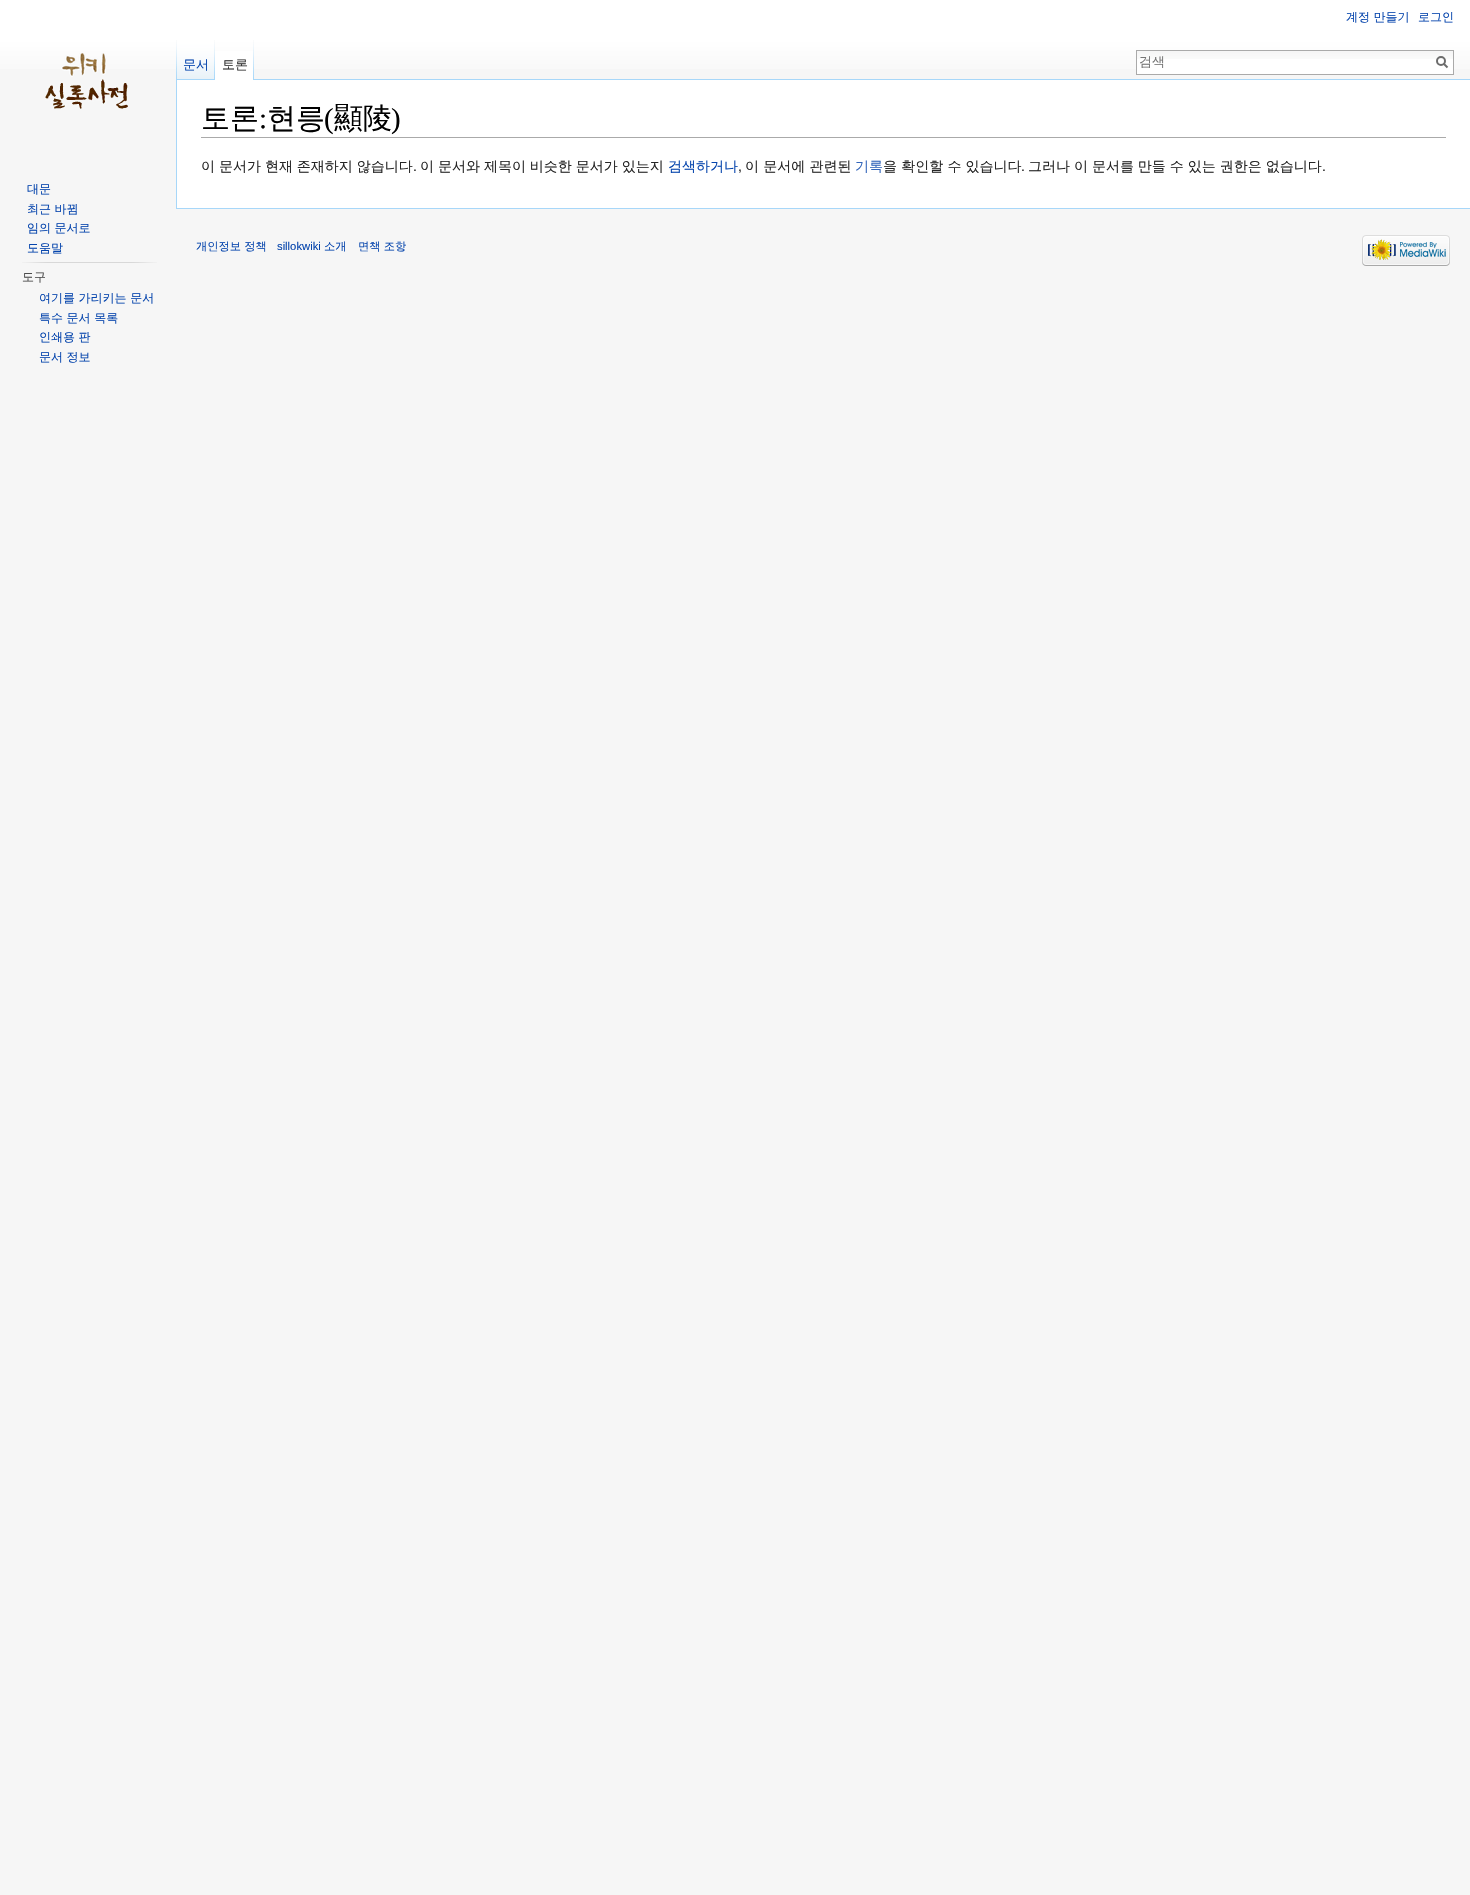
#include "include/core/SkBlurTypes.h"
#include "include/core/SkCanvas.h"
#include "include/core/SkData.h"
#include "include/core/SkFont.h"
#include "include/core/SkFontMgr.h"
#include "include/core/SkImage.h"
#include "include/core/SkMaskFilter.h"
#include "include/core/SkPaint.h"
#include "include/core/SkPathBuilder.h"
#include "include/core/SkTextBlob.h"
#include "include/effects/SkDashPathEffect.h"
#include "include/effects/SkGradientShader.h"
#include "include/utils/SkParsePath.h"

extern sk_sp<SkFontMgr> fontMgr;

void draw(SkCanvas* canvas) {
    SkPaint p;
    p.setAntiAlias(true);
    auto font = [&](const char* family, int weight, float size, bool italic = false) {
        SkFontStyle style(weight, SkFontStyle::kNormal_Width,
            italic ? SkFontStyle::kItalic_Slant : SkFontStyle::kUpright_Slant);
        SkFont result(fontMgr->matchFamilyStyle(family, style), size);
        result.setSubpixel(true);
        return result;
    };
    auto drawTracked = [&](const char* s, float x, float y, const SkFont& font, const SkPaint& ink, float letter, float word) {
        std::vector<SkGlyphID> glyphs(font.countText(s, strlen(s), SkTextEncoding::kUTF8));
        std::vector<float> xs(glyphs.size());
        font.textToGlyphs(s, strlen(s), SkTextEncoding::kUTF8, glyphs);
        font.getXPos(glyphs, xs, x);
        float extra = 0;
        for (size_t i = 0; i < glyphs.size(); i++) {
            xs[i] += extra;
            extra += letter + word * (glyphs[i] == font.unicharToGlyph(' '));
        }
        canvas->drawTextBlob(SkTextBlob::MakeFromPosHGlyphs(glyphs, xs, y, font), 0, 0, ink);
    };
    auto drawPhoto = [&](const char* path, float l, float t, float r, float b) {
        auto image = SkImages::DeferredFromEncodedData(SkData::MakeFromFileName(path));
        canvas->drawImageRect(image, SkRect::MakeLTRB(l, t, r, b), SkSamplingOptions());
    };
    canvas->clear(0xFFF6F6F6);
    {
        const SkColor colors[] = {0xFFFFFFFF, 0xFFF6F6F6};
        const float stops[] = {0.5f, 1};
        const SkPoint ends[] = {{735, 0}, {735, 80}};
        p.setShader(SkGradientShader::MakeLinear(ends, colors, stops, 2, SkTileMode::kClamp));
        p.setAlpha(255);
    }
    canvas->drawRect(SkRect::MakeLTRB(0, 0, 1470, 69), p);
    auto font1 = font("WenQuanYi Zen Hei", 500, 12);
    p.setShader(nullptr);
    p.setColor(0xFF0645AD);
    canvas->drawString("계정 만들기", 1346, 21, font1, p);
    canvas->drawString("로그인", 1418, 21, font1, p);
    drawPhoto("media/1.png", 176, 40, 177, 79);
    drawPhoto("media/2.png", 177, 40, 215, 80);
    drawPhoto("media/3.png", 214, 40, 215, 79);
    auto font2 = font("WenQuanYi Zen Hei", 500, 13);
    canvas->drawString("문서", 183, 69, font2, p);
    p.setColor(0xFFFFFFFF);
    canvas->drawRect(SkRect::MakeLTRB(215, 51, 253, 80), p);
    drawPhoto("media/4.png", 253, 40, 254, 80);
    p.setColor(0xFF333333);
    canvas->drawString("토론", 222, 69, font2, p);
    p.setColor(0xFFFFFFFF);
    canvas->drawRect(SkRect::MakeLTRB(1137, 59, 1453, 74), p);
    drawPhoto("media/5.png", 1137, 51, 1453, 59);
    p.setStyle(SkPaint::kStroke_Style);
    p.setStrokeWidth(1);
    p.setColor(0xFFAAAAAA);
    canvas->drawRect(SkRect::MakeLTRB(1136.5f, 50.5f, 1453.5f, 74.5f), p);
    p.setStyle(SkPaint::kFill_Style);
    p.setColor(0xFF757575);
    canvas->drawString("검색", 1139, 66, font2, p);
    p.setStyle(SkPaint::kStroke_Style);
    p.setStrokeWidth(2);
    p.setColor(0xFF6C6C6C);
    canvas->drawPath(SkPathBuilder().moveTo(1447.5f, 67.5f).lineTo(1443.5f, 63.5f).detach(), p);
    canvas->drawCircle(1441, 61, 4, p);
    drawPhoto("media/6.png", 45, 53, 128, 109);
    p.setStyle(SkPaint::kFill_Style);
    p.setColor(0xFF0645AD);
    {
        const struct { const char* s; float x, y; } items[] = {
            {"대문", 27, 193},
            {"최근 바뀜", 27, 213},
            {"임의 문서로", 27, 232},
            {"도움말", 27, 252},
        };
        for (auto [s, x, y] : items) {
            canvas->drawString(s, x, y, font1, p);
        }
    }
    drawPhoto("media/7.png", 22, 262, 157, 263);
    p.setColor(0xFF4D4D4D);
    canvas->drawString("도구", 22, 281, font1, p);
    p.setColor(0xFF0645AD);
    {
        const struct { const char* s; float x, y; } items[] = {
            {"여기를 가리키는 문서", 39, 302},
            {"특수 문서 목록", 39, 322},
            {"인쇄용 판", 39, 341},
            {"문서 정보", 39, 361},
        };
        for (auto [s, x, y] : items) {
            canvas->drawString(s, x, y, font1, p);
        }
    }
    {
        const struct { float l, t, r, b; SkColor color; } items[] = {
            {177, 80, 1470, 208, 0xFFFFFFFF},
            {254, 79, 1470, 80, 0xFFA7D7F9},
            {176, 208, 1470, 209, 0xFFA7D7F9},
            {176, 79, 177, 209, 0xFFA7D7F9},
            {201, 137, 1446, 138, 0xFFAAAAAA},
        };
        for (auto [l, t, r, b, color] : items) {
            p.setColor(color);
            canvas->drawRect(SkRect::MakeLTRB(l, t, r, b), p);
        }
    }
    auto font3 = font("WenQuanYi Zen Hei", 500, 29);
    p.setColor(0xFF000000);
    canvas->drawString("토론", 201, 128, font3, p);
    auto font4 = font("Liberation Serif", 400, 29);
    canvas->drawString(":", 259, 128, font4, p);
    canvas->drawString("현릉", 267, 128, font3, p);
    canvas->drawString("(", 324, 128, font4, p);
    canvas->drawString("顯陵", 334, 128, font3, p);
    canvas->drawString(")", 391, 128, font4, p);
    auto font5 = font("WenQuanYi Zen Hei", 500, 14);
    p.setColor(0xFF252525);
    drawTracked("이 문서가 현재 존재하지 않습니다", 201, 171, font5, p, 0, -0.25f);
    auto font6 = font("Liberation Sans", 400, 14);
    canvas->drawString(".", 413, 171, font6, p);
    drawTracked("이 문서와 제목이 비슷한 문서가 있는지", 420, 171, font5, p, 0, -0.25f);
    p.setColor(0xFF0645AD);
    canvas->drawString("검색하거나", 668, 171, font5, p);
    p.setColor(0xFF252525);
    canvas->drawString(",", 738, 171, font6, p);
    canvas->drawString("이 문서에 관련된", 745, 171, font5, p);
    p.setColor(0xFF3366BB);
    canvas->drawString("기록", 855, 171, font5, p);
    p.setColor(0xFF252525);
    canvas->drawString("을 확인할 수 있습니다", 883, 171, font5, p);
    canvas->drawString(".", 1021, 171, font6, p);
    drawTracked("그러나 이 문서를 만들 수 있는 권한은 없습니다", 1028, 171, font5, p, 0, -0.25f);
    canvas->drawString(".", 1322, 171, font6, p);
    auto font7 = font("WenQuanYi Zen Hei", 500, 11.25f);
    p.setColor(0xFF0645AD);
    canvas->drawString("개인정보 정책", 196, 250, font7, p);
    auto font8 = font("Liberation Sans", 400, 11.25f);
    canvas->drawString("sillokwiki", 277, 250, font8, p);
    canvas->drawString("소개", 324, 250, font7, p);
    canvas->drawString("면책 조항", 358, 250, font7, p);
    drawPhoto("media/8.png", 1362, 235, 1450, 266);
}
